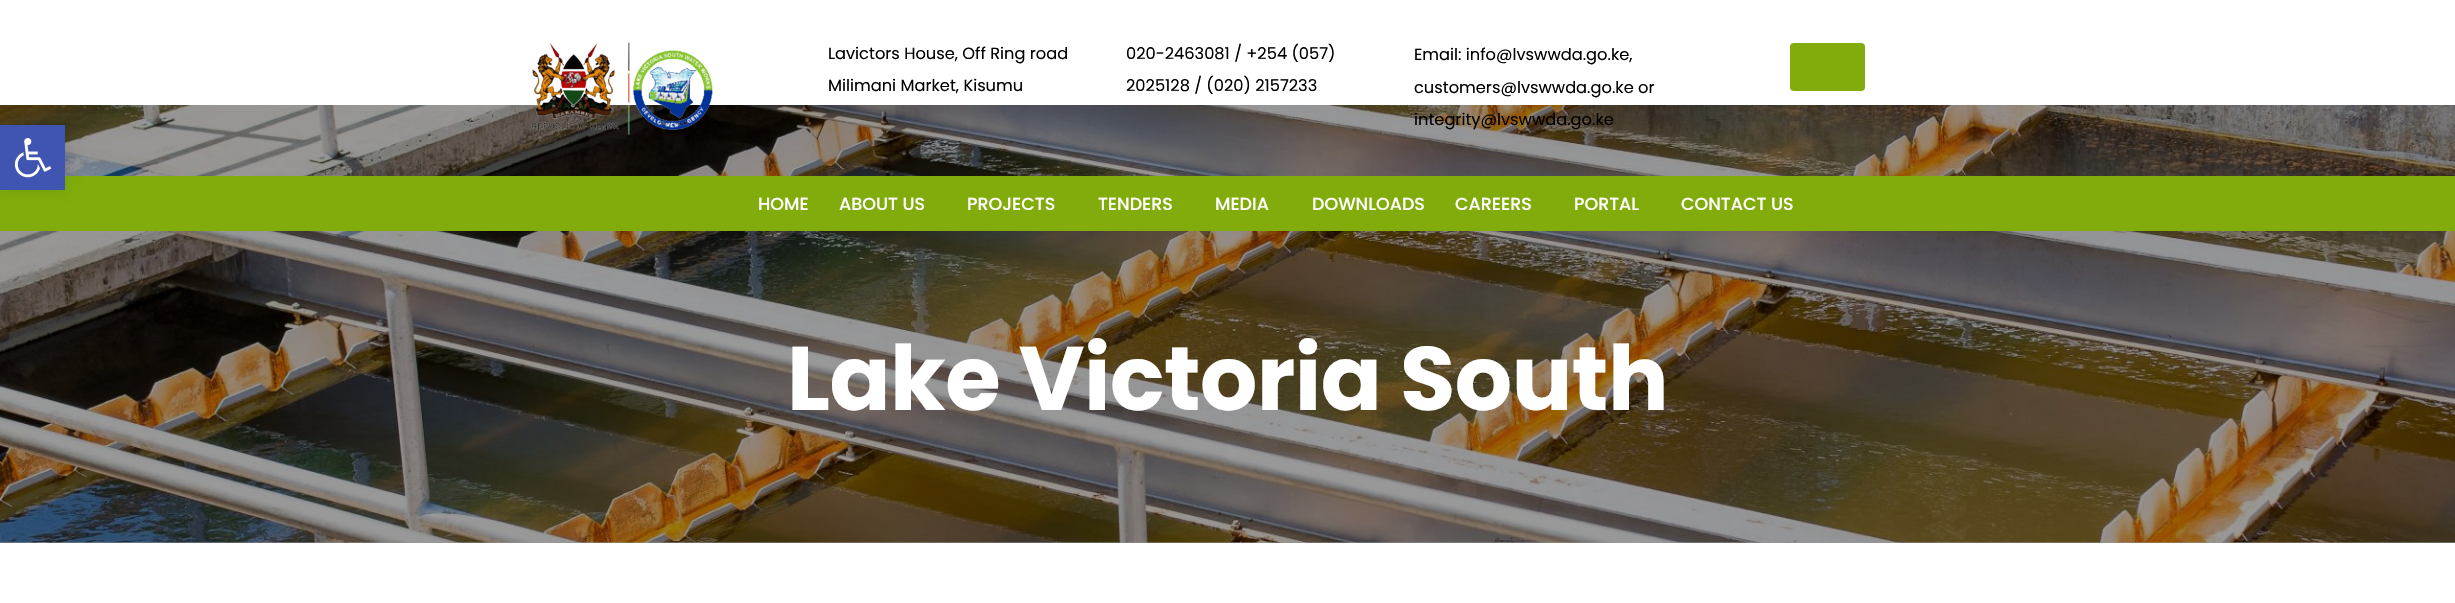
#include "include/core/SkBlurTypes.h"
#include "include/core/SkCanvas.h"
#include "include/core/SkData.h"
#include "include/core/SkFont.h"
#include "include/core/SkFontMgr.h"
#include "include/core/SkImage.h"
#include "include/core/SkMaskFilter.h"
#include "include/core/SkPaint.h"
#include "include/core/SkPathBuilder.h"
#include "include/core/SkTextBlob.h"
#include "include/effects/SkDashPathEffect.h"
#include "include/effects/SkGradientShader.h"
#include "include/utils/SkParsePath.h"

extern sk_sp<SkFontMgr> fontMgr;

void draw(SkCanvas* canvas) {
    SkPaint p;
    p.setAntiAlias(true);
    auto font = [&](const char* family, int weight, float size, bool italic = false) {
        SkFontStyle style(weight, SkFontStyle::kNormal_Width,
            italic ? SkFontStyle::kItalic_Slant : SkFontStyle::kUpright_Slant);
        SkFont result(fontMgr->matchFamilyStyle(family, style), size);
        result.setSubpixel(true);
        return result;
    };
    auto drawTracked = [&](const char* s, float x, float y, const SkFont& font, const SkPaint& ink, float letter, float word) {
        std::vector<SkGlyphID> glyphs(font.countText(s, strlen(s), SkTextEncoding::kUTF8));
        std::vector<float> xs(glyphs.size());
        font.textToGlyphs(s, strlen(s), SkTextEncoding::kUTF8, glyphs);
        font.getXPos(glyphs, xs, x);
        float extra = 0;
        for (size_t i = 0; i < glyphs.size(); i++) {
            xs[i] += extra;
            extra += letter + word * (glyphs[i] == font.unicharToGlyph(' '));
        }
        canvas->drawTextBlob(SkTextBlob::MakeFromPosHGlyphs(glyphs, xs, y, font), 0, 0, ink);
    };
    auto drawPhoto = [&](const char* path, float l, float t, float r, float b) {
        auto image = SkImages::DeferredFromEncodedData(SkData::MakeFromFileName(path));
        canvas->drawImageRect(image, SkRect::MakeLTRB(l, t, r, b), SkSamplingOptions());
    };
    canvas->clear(0xFFFFFFFF);
    p.setColor(0xFF999999);
    canvas->drawRect(SkRect::MakeLTRB(0, 542, 2455, 543), p);
    drawPhoto("media/3.png", 0, 105, 2455, 543);
    p.setColor(0xFF81AC0B);
    canvas->drawRect(SkRect::MakeLTRB(0, 176, 2455, 231), p);
    p.setColor(0x1A000000);
    p.setMaskFilter(SkMaskFilter::MakeBlur(kNormal_SkBlurStyle, 6));
    canvas->drawRect(SkRect::MakeLTRB(0, 125, 65, 190), p);
    p.setMaskFilter(nullptr);
    p.setColor(0xFF4054B2);
    canvas->drawRect(SkRect::MakeLTRB(0, 125, 65, 190), p);
    drawPhoto("media/1.png", 14, 138, 52, 178);
    drawPhoto("media/2.png", 531, 42, 713, 135);
    auto font1 = font("Poppins", 400, 16.25f);
    p.setColor(0xFF000000);
    {
        const struct { const char* s; float x, y; } items[] = {
            {"Lavictors House, Off Ring road", 828, 59},
            {"Milimani Market, Kisumu", 828, 91},
            {"020-2463081 / +254 (057)", 1126, 59},
            {"2025128 / (020) 2157233", 1126, 91},
            {"Email: info@lvswwda.go.ke,", 1414, 60},
            {"customers@lvswwda.go.ke or", 1414, 93},
            {"integrity@lvswwda.go.ke", 1414, 125},
        };
        for (auto [s, x, y] : items) {
            canvas->drawString(s, x, y, font1, p);
        }
    }
    p.setColor(0xFF81AC0B);
    canvas->drawRoundRect(SkRect::MakeLTRB(1790, 43, 1865, 91), 4, 4, p);
    auto font2 = font("Poppins", 500, 17.5f);
    p.setColor(0xFFFFFFFF);
    {
        const struct { const char* s; float x, y; } items[] = {
            {"HOME", 758, 210},
            {"ABOUT US", 839, 210},
            {"PROJECTS", 967, 210},
            {"TENDERS", 1098, 210},
            {"MEDIA", 1215, 210},
            {"DOWNLOADS", 1312, 210},
            {"CAREERS", 1455, 210},
            {"PORTAL", 1574, 210},
            {"CONTACT US", 1681, 210},
        };
        for (auto [s, x, y] : items) {
            canvas->drawString(s, x, y, font2, p);
        }
    }
    auto font3 = font("Poppins", 700, 90);
    drawTracked("Lake Victoria South", 787, 410, font3, p, -0.5f, 0);
}
